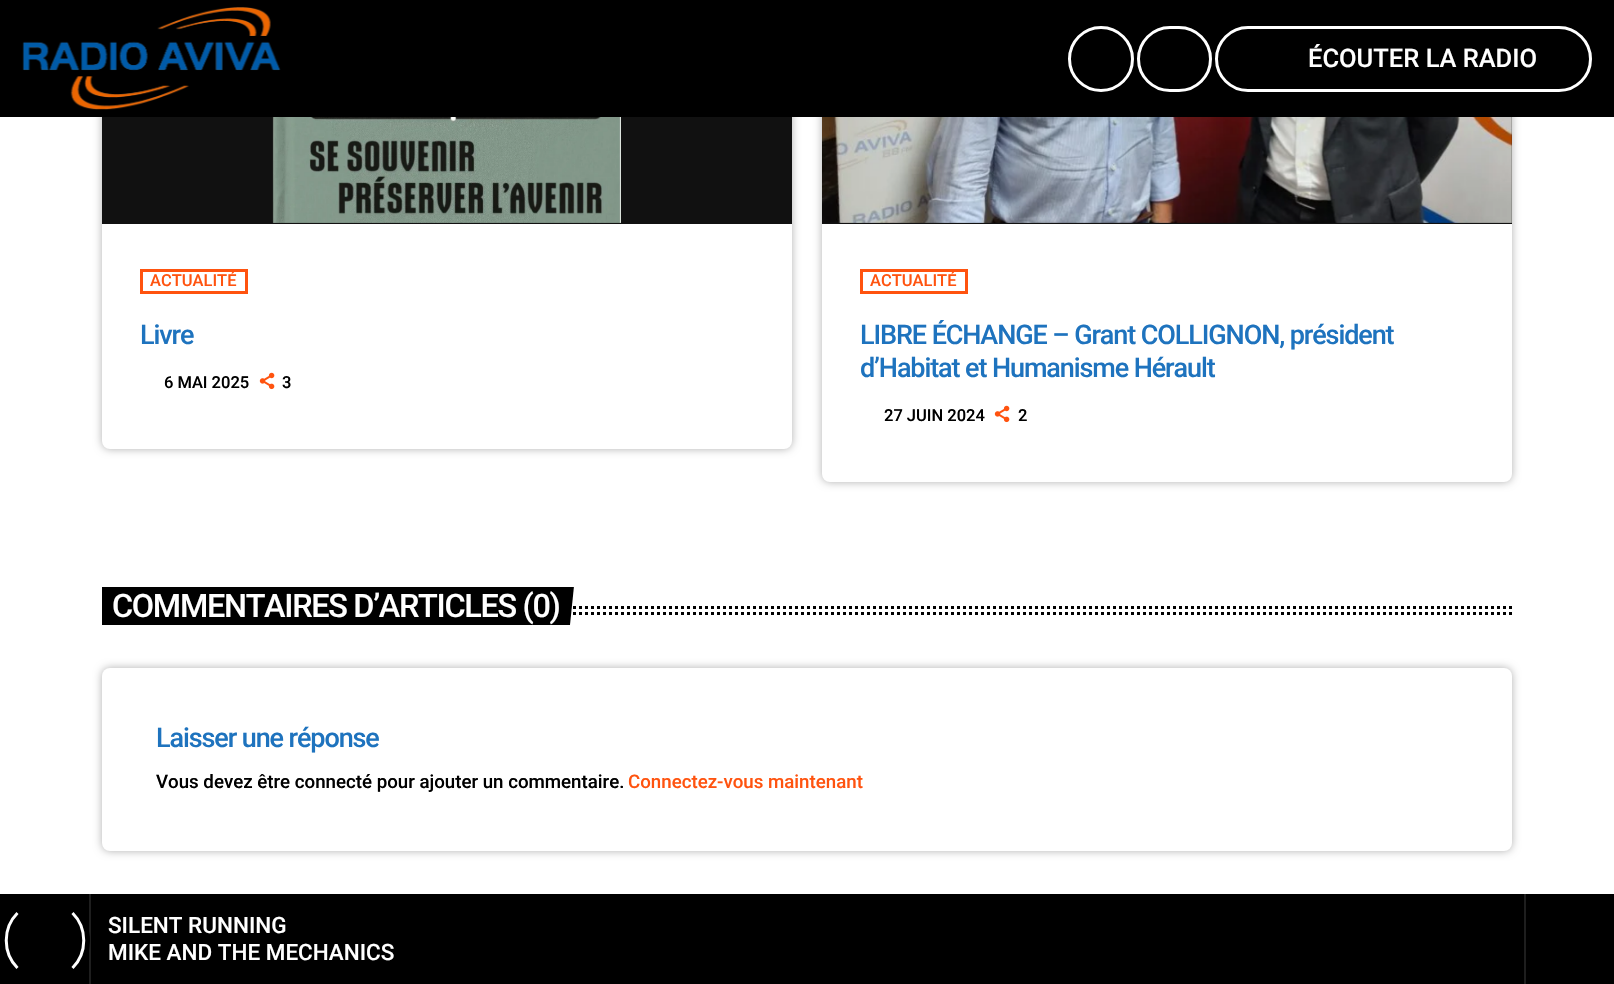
#include "include/core/SkBlurTypes.h"
#include "include/core/SkCanvas.h"
#include "include/core/SkData.h"
#include "include/core/SkFont.h"
#include "include/core/SkFontMgr.h"
#include "include/core/SkImage.h"
#include "include/core/SkMaskFilter.h"
#include "include/core/SkPaint.h"
#include "include/core/SkPathBuilder.h"
#include "include/core/SkTextBlob.h"
#include "include/effects/SkDashPathEffect.h"
#include "include/effects/SkGradientShader.h"
#include "include/utils/SkParsePath.h"

extern sk_sp<SkFontMgr> fontMgr;

void draw(SkCanvas* canvas) {
    SkPaint p;
    p.setAntiAlias(true);
    auto font = [&](const char* family, int weight, float size, bool italic = false) {
        SkFontStyle style(weight, SkFontStyle::kNormal_Width,
            italic ? SkFontStyle::kItalic_Slant : SkFontStyle::kUpright_Slant);
        SkFont result(fontMgr->matchFamilyStyle(family, style), size);
        result.setSubpixel(true);
        return result;
    };
    auto drawTracked = [&](const char* s, float x, float y, const SkFont& font, const SkPaint& ink, float letter, float word) {
        std::vector<SkGlyphID> glyphs(font.countText(s, strlen(s), SkTextEncoding::kUTF8));
        std::vector<float> xs(glyphs.size());
        font.textToGlyphs(s, strlen(s), SkTextEncoding::kUTF8, glyphs);
        font.getXPos(glyphs, xs, x);
        float extra = 0;
        for (size_t i = 0; i < glyphs.size(); i++) {
            xs[i] += extra;
            extra += letter + word * (glyphs[i] == font.unicharToGlyph(' '));
        }
        canvas->drawTextBlob(SkTextBlob::MakeFromPosHGlyphs(glyphs, xs, y, font), 0, 0, ink);
    };
    auto drawPhoto = [&](const char* path, float l, float t, float r, float b) {
        auto image = SkImages::DeferredFromEncodedData(SkData::MakeFromFileName(path));
        canvas->drawImageRect(image, SkRect::MakeLTRB(l, t, r, b), SkSamplingOptions());
    };
    canvas->clear(0xFFFFFFFF);
    p.setColor(0x4F000000);
    p.setMaskFilter(SkMaskFilter::MakeBlur(kNormal_SkBlurStyle, 4.5f));
    canvas->drawRoundRect(SkRect::MakeLTRB(102, -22, 792, 449), 8, 8, p);
    p.setMaskFilter(nullptr);
    p.setColor(0xFFFFFFFF);
    canvas->drawRoundRect(SkRect::MakeLTRB(102, -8, 792, 449), 8, 8, p);
    p.setColor(0x4F000000);
    p.setMaskFilter(SkMaskFilter::MakeBlur(kNormal_SkBlurStyle, 4.5f));
    canvas->drawRoundRect(SkRect::MakeLTRB(822, -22, 1512, 482), 8, 8, p);
    p.setMaskFilter(nullptr);
    p.setColor(0xFFFFFFFF);
    canvas->drawRoundRect(SkRect::MakeLTRB(822, -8, 1512, 482), 8, 8, p);
    p.setColor(0xFF000000);
    canvas->drawRect(SkRect::MakeLTRB(0, 0, 1614, 117), p);
    drawPhoto("media/1.png", 22, 7, 281, 110);
    p.setStyle(SkPaint::kStroke_Style);
    p.setStrokeWidth(3);
    p.setColor(0xFFFFFFFF);
    canvas->drawCircle(1101, 59, 31.5f, p);
    canvas->drawRoundRect(SkRect::MakeLTRB(1138.5f, 27.5f, 1210.5f, 90.5f), 31.5f, 31.5f, p);
    canvas->drawRoundRect(SkRect::MakeLTRB(1216.5f, 27.5f, 1590.5f, 90.5f), 31.5f, 31.5f, p);
    auto font1 = font("Roboto", 500, 25.5f);
    p.setStyle(SkPaint::kFill_Style);
    canvas->drawString("ÉCOUTER LA RADIO", 1308, 67, font1, p);
    p.setColor(0xFF111111);
    canvas->drawRect(SkRect::MakeLTRB(102, 117, 792, 224), p);
    drawPhoto("media/2.png", 272, 117, 621, 223);
    p.setStyle(SkPaint::kStroke_Style);
    p.setColor(0xFFFF530F);
    canvas->drawRect(SkRect::MakeLTRB(141.5f, 270.5f, 246.5f, 292.5f), p);
    auto font2 = font("Roboto", 500, 16.5f);
    p.setStyle(SkPaint::kFill_Style);
    canvas->drawString("ACTUALITÉ", 150, 286, font2, p);
    auto font3 = font("Roboto", 500, 27);
    p.setColor(0xFF1E73BE);
    drawTracked("Livre", 140, 344, font3, p, -1.1f, 0);
    p.setColor(0xFF000000);
    canvas->drawString("6 MAI 2025", 164, 388, font2, p);
    drawPhoto("media/3.png", 259, 372, 275, 390);
    canvas->drawString("3", 282, 388, font2, p);
    p.setColor(0xFF111111);
    canvas->drawRect(SkRect::MakeLTRB(822, 117, 1512, 224), p);
    drawPhoto("media/4.png", 822, 117, 1512, 223);
    p.setStyle(SkPaint::kStroke_Style);
    p.setColor(0xFFFF530F);
    canvas->drawRect(SkRect::MakeLTRB(861.5f, 270.5f, 966.5f, 292.5f), p);
    p.setStyle(SkPaint::kFill_Style);
    canvas->drawString("ACTUALITÉ", 870, 286, font2, p);
    canvas->save();
    canvas->clipRect(SkRect::MakeLTRB(860, 320, 1475, 384));
    p.setColor(0xFF1E73BE);
    drawTracked("LIBRE ÉCHANGE – Grant COLLIGNON, président", 860, 344, font3, p, -1.1f, 0);
    canvas->restore();
    drawTracked("d’Habitat et Humanisme Hérault", 860, 377, font3, p, -1.1f, 0);
    p.setColor(0xFF000000);
    canvas->drawString("27 JUIN 2024", 884, 421, font2, p);
    drawPhoto("media/3.png", 994, 405, 1010, 423);
    canvas->drawString("2", 1018, 421, font2, p);
    p.setStyle(SkPaint::kStroke_Style);
    p.setPathEffect(SkDashPathEffect::Make({{3, 3}}, 0));
    canvas->drawPath(SkPathBuilder().moveTo(111, 607.5f).lineTo(1512, 607.5f).detach(), p);
    p.setPathEffect(nullptr);
    p.setPathEffect(SkDashPathEffect::Make({{3, 3}}, 0));
    canvas->drawPath(SkPathBuilder().moveTo(111, 613.5f).lineTo(1512, 613.5f).detach(), p);
    p.setPathEffect(nullptr);
    canvas->save();
    canvas->clipRect(SkRect::MakeLTRB(102, 587, 582, 626));
    p.setStyle(SkPaint::kFill_Style);
    canvas->drawPath(SkPathBuilder().moveTo(100, 586).lineTo(574, 586).lineTo(570, 625).lineTo(95, 625).close().detach(), p);
    canvas->restore();
    auto font4 = font("Roboto", 500, 32.4f);
    p.setColor(0xFFFFFFFF);
    drawTracked("COMMENTAIRES D’ARTICLES (0)", 112, 617, font4, p, -1.3f, 0);
    p.setColor(0x4F000000);
    p.setMaskFilter(SkMaskFilter::MakeBlur(kNormal_SkBlurStyle, 4.5f));
    canvas->drawRoundRect(SkRect::MakeLTRB(102, 668, 1512, 851), 8, 8, p);
    p.setMaskFilter(nullptr);
    p.setColor(0xFFFFFFFF);
    canvas->drawRoundRect(SkRect::MakeLTRB(102, 668, 1512, 851), 8, 8, p);
    p.setColor(0xFF1E73BE);
    drawTracked("Laisser une réponse", 156, 747, font3, p, -1.1f, 0);
    auto font5 = font("Roboto", 500, 18.7f);
    p.setColor(0xFF000000);
    canvas->drawString("Vous devez être connecté pour ajouter un commentaire.", 156, 788, font5, p);
    p.setColor(0xFFFF530F);
    canvas->drawString("Connectez-vous maintenant", 628, 788, font5, p);
    p.setColor(0xFF000000);
    canvas->drawRect(SkRect::MakeLTRB(0, 894, 1614, 984), p);
    p.setColor(0xFF1E1E1E);
    canvas->drawRect(SkRect::MakeLTRB(89, 894, 91, 984), p);
    p.setColor(0xFF000000);
    canvas->drawCircle(45, 941, 45, p);
    p.setStyle(SkPaint::kStroke_Style);
    p.setColor(0xFFFFFFFF);
    canvas->drawPath(SkPathBuilder().moveTo(72.5f, 913).cubicTo(87.5f, 928, 87.5f, 953, 72.5f, 968).detach(), p);
    canvas->drawPath(SkPathBuilder().moveTo(17.5f, 968).cubicTo(2.5f, 953, 2.5f, 928, 17.5f, 913).detach(), p);
    auto font6 = font("Roboto", 500, 22.5f);
    p.setStyle(SkPaint::kFill_Style);
    canvas->drawString("SILENT RUNNING", 108, 933, font6, p);
    canvas->drawString("MIKE AND THE MECHANICS", 108, 960, font6, p);
    p.setColor(0xFF1E1E1E);
    canvas->drawRect(SkRect::MakeLTRB(1524, 894, 1526, 984), p);
}
